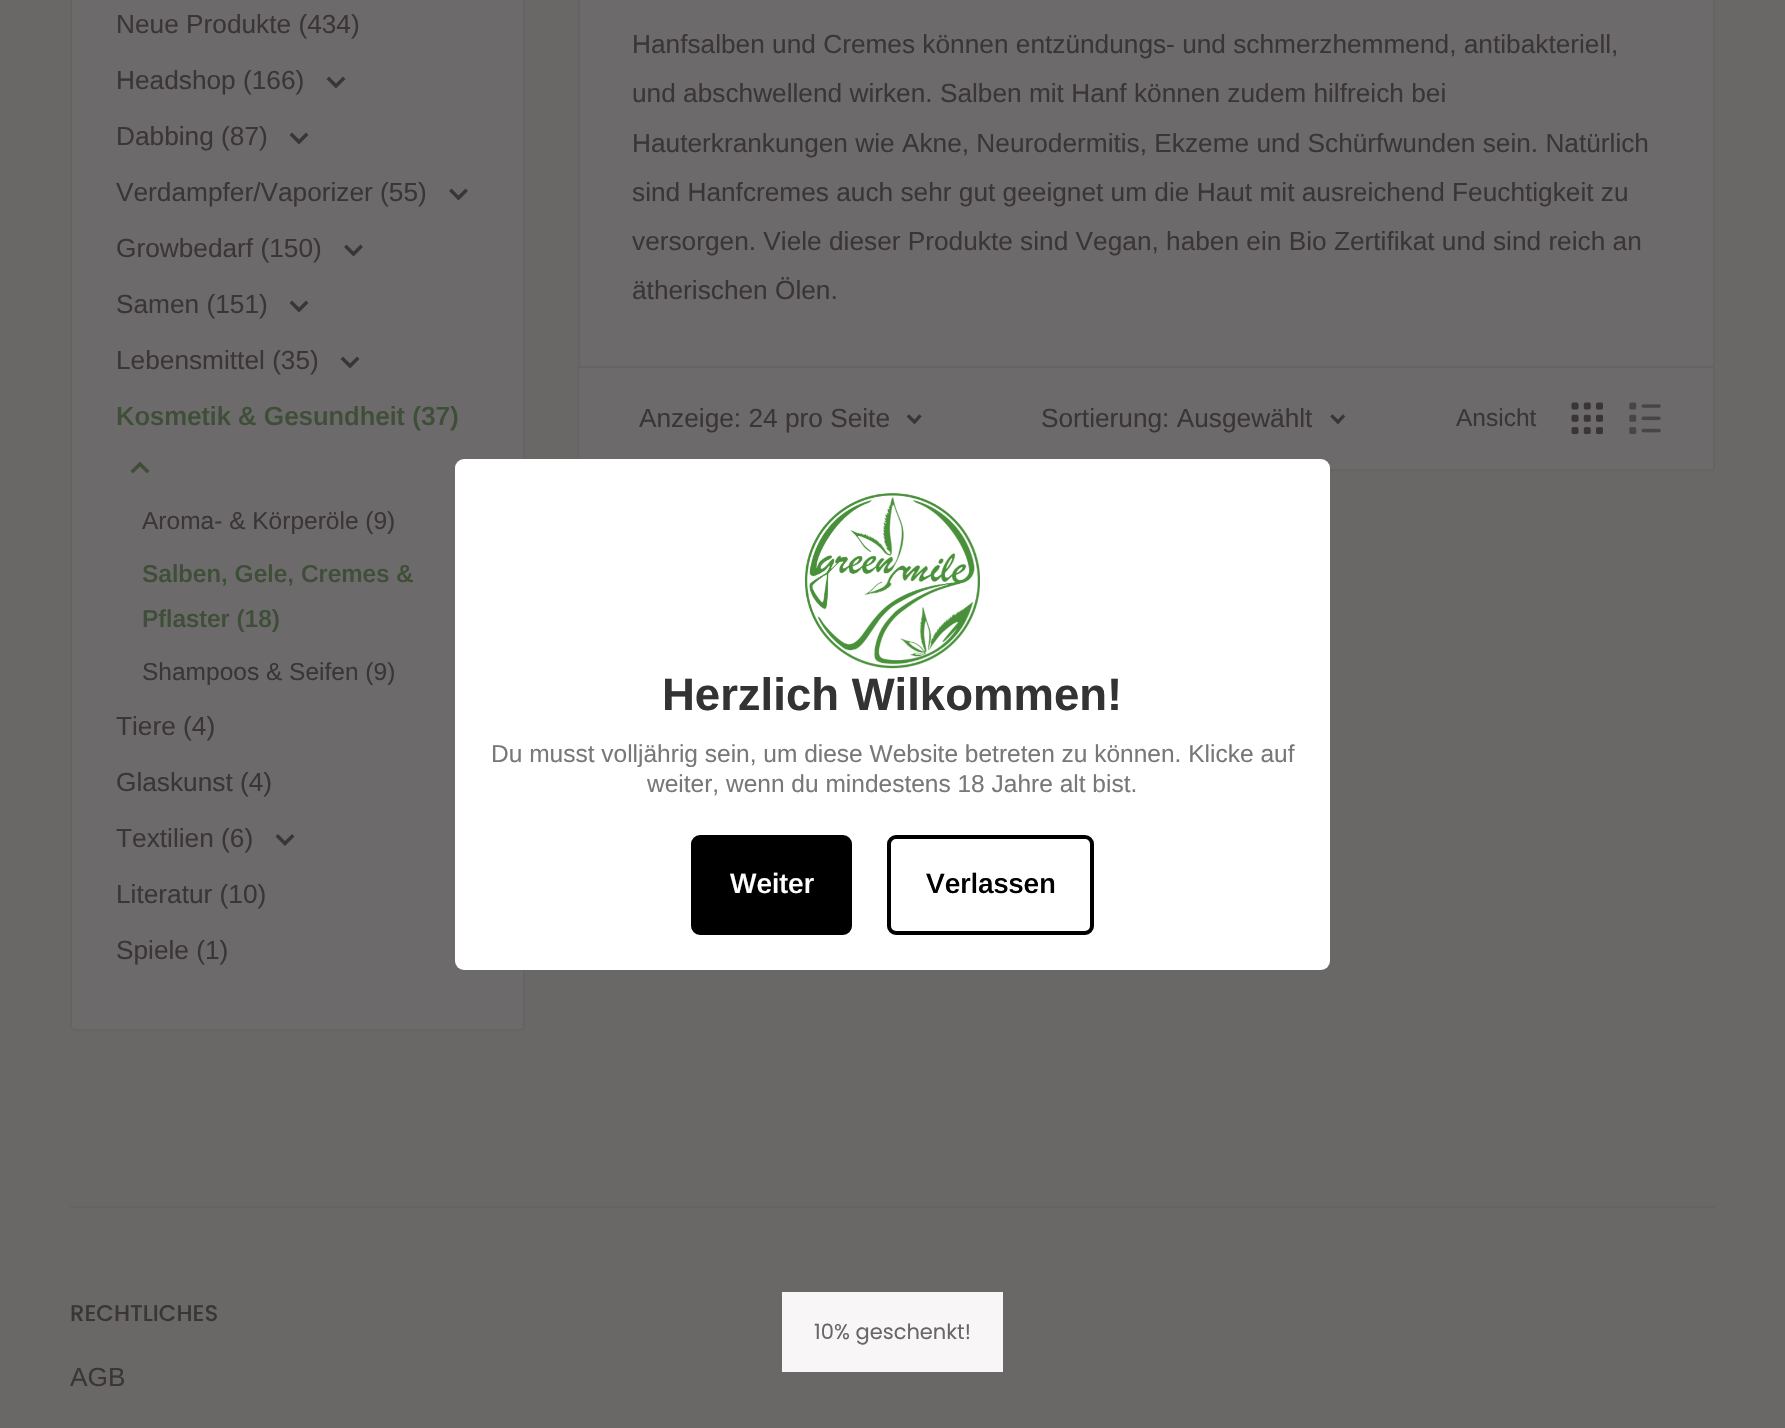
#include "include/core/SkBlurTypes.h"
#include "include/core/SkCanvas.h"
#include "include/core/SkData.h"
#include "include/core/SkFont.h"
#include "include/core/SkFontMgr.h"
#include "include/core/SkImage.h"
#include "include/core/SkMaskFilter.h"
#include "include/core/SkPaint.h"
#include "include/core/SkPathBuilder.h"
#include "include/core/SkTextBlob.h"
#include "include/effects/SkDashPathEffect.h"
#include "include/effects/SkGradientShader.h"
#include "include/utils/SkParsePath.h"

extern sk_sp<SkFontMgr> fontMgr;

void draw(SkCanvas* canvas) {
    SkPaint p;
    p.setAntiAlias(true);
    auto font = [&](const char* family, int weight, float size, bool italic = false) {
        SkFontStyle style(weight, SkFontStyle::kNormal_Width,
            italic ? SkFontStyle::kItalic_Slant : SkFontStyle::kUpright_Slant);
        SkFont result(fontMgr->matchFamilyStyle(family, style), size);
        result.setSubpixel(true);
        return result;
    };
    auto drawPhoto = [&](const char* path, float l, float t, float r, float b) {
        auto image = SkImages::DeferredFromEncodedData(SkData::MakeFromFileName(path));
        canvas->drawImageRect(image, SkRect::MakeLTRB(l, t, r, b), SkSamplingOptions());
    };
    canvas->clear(0xFF6A6767);
    p.setColor(0xFF6C6A6A);
    canvas->drawRoundRect(SkRect::MakeLTRB(71, -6, 524, 1030), 4, 4, p);
    p.setStyle(SkPaint::kStroke_Style);
    p.setStrokeWidth(2);
    p.setColor(0xFF666362);
    canvas->drawRoundRect(SkRect::MakeLTRB(71, -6, 524, 1030), 4, 4, p);
    auto font1 = font("Arimo", 400, 26.25f);
    p.setStyle(SkPaint::kFill_Style);
    p.setColor(0xFF3B3536);
    canvas->drawString("Neue Produkte (434)", 116, 33, font1, p);
    canvas->drawString("Headshop (166)", 116, 89, font1, p);
    p.setStyle(SkPaint::kStroke_Style);
    p.setStrokeWidth(3.5f);
    p.setStrokeCap(SkPaint::kSquare_Cap);
    canvas->drawPath(SkPathBuilder().moveTo(343, 79).lineTo(336, 86).lineTo(329, 79).detach(), p);
    p.setStyle(SkPaint::kFill_Style);
    canvas->drawString("Dabbing (87)", 116, 145, font1, p);
    p.setStyle(SkPaint::kStroke_Style);
    canvas->drawPath(SkPathBuilder().moveTo(306, 135).lineTo(299, 142).lineTo(292, 135).detach(), p);
    p.setStyle(SkPaint::kFill_Style);
    canvas->drawString("Verdampfer/Vaporizer (55)", 116, 201, font1, p);
    p.setStyle(SkPaint::kStroke_Style);
    canvas->drawPath(SkPathBuilder().moveTo(465.5f, 191).lineTo(458.5f, 198).lineTo(451.5f, 191).detach(), p);
    p.setStyle(SkPaint::kFill_Style);
    canvas->drawString("Growbedarf (150)", 116, 257, font1, p);
    p.setStyle(SkPaint::kStroke_Style);
    canvas->drawPath(SkPathBuilder().moveTo(360.5f, 247).lineTo(353.5f, 254).lineTo(346.5f, 247).detach(), p);
    p.setStyle(SkPaint::kFill_Style);
    canvas->drawString("Samen (151)", 116, 313, font1, p);
    p.setStyle(SkPaint::kStroke_Style);
    canvas->drawPath(SkPathBuilder().moveTo(306, 303).lineTo(299, 310).lineTo(292, 303).detach(), p);
    p.setStyle(SkPaint::kFill_Style);
    canvas->drawString("Lebensmittel (35)", 116, 369, font1, p);
    p.setStyle(SkPaint::kStroke_Style);
    canvas->drawPath(SkPathBuilder().moveTo(357, 359).lineTo(350, 366).lineTo(343, 359).detach(), p);
    auto font2 = font("Arimo", 600, 26.25f);
    p.setStyle(SkPaint::kFill_Style);
    p.setColor(0xFF3E4E38);
    canvas->drawString("Kosmetik & Gesundheit (37)", 116, 425, font2, p);
    p.setStyle(SkPaint::kStroke_Style);
    canvas->drawPath(SkPathBuilder().moveTo(133, 471).lineTo(140, 464).lineTo(147, 471).detach(), p);
    auto font3 = font("Arimo", 400, 24.5f);
    p.setStyle(SkPaint::kFill_Style);
    p.setColor(0xFF3B3536);
    canvas->drawString("Aroma- & Körperöle (9)", 142, 529, font3, p);
    auto font4 = font("Arimo", 600, 24.5f);
    p.setColor(0xFF3E4E38);
    canvas->drawString("Salben, Gele, Cremes &", 142, 582, font4, p);
    canvas->drawString("Pflaster (18)", 142, 627, font4, p);
    p.setColor(0xFF3B3536);
    canvas->drawString("Shampoos & Seifen (9)", 142, 680, font3, p);
    {
        const struct { const char* s; float x, y; } items[] = {
            {"Tiere (4)", 116, 735},
            {"Glaskunst (4)", 116, 791},
            {"Textilien (6)", 116, 847},
        };
        for (auto [s, x, y] : items) {
            canvas->drawString(s, x, y, font1, p);
        }
    }
    p.setStyle(SkPaint::kStroke_Style);
    canvas->drawPath(SkPathBuilder().moveTo(292, 836.5f).lineTo(285, 843.5f).lineTo(278, 836.5f).detach(), p);
    p.setStyle(SkPaint::kFill_Style);
    canvas->drawString("Literatur (10)", 116, 903, font1, p);
    canvas->drawString("Spiele (1)", 116, 959, font1, p);
    p.setColor(0xFF6C6A6A);
    canvas->drawRoundRect(SkRect::MakeLTRB(579, -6, 1714, 470), 4, 4, p);
    p.setStyle(SkPaint::kStroke_Style);
    p.setStrokeWidth(2);
    p.setStrokeCap(SkPaint::kButt_Cap);
    p.setColor(0xFF666362);
    canvas->drawRoundRect(SkRect::MakeLTRB(579, -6, 1714, 470), 4, 4, p);
    p.setStyle(SkPaint::kFill_Style);
    p.setColor(0xFF3B3536);
    {
        const struct { const char* s; float x, y; } items[] = {
            {"Hanfsalben und Cremes können entzündungs- und schmerzhemmend, antibakteriell,", 632, 53},
            {"und abschwellend wirken. Salben mit Hanf können zudem hilfreich bei", 632, 102},
            {"Hauterkrankungen wie Akne, Neurodermitis, Ekzeme und Schürfwunden sein. Natürlich", 632, 152},
            {"sind Hanfcremes auch sehr gut geeignet um die Haut mit ausreichend Feuchtigkeit zu", 632, 201},
            {"versorgen. Viele dieser Produkte sind Vegan, haben ein Bio Zertifikat und sind reich an", 632, 250},
            {"ätherischen Ölen.", 632, 299},
        };
        for (auto [s, x, y] : items) {
            canvas->drawString(s, x, y, font1, p);
        }
    }
    p.setColor(0xFF666362);
    canvas->drawPath(SkPathBuilder().moveTo(579, 366).lineTo(579, 467).lineTo(579, 368).lineTo(1713, 368).lineTo(1713, 366).close().detach(), p);
    canvas->drawPath(SkPathBuilder().moveTo(579, 369).lineTo(579, 471).lineTo(1713, 471).lineTo(1713, 469).lineTo(579, 469).close().detach(), p);
    p.setColor(0xFF6C6A6A);
    canvas->drawRect(SkRect::MakeLTRB(579, 368, 1713, 469), p);
    p.setColor(0xFF3B3536);
    canvas->drawString("Anzeige: 24 pro Seite", 639, 427, font1, p);
    p.setStyle(SkPaint::kStroke_Style);
    p.setStrokeWidth(3.3f);
    p.setStrokeCap(SkPaint::kSquare_Cap);
    canvas->drawPath(SkPathBuilder().moveTo(919.5f, 416.5f).lineTo(914.5f, 422).lineTo(909, 416.5f).detach(), p);
    p.setStyle(SkPaint::kFill_Style);
    canvas->drawString("Sortierung: Ausgewählt", 1041, 427, font1, p);
    p.setStyle(SkPaint::kStroke_Style);
    canvas->drawPath(SkPathBuilder().moveTo(1343, 416.5f).lineTo(1338, 422).lineTo(1332.5f, 416.5f).detach(), p);
    p.setStyle(SkPaint::kFill_Style);
    canvas->drawString("Ansicht", 1456, 426, font3, p);
    drawPhoto("media/1.png", 1571, 402, 1603, 435);
    drawPhoto("media/2.png", 1629, 402, 1661, 435);
    p.setColor(0xFFFFFFFF);
    canvas->drawRoundRect(SkRect::MakeLTRB(455, 459, 1330, 970), 9, 9, p);
    drawPhoto("media/3.png", 805, 493, 980, 669);
    auto font5 = font("Arimo", 700, 45.5f);
    p.setColor(0xFF333333);
    canvas->drawString("Herzlich Wilkommen!", 662, 710, font5, p);
    p.setColor(0xFF787878);
    canvas->drawString("Du musst volljährig sein, um diese Website betreten zu können. Klicke auf", 491, 762, font3, p);
    canvas->drawString("weiter, wenn du mindestens 18 Jahre alt bist.", 647, 792, font3, p);
    p.setColor(0xFF000000);
    canvas->drawRoundRect(SkRect::MakeLTRB(693, 837, 850, 933), 7, 7, p);
    p.setStyle(SkPaint::kStroke_Style);
    p.setStrokeWidth(4);
    p.setStrokeCap(SkPaint::kButt_Cap);
    canvas->drawRoundRect(SkRect::MakeLTRB(693, 837, 850, 933), 7, 7, p);
    auto font6 = font("Arimo", 600, 28);
    p.setStyle(SkPaint::kFill_Style);
    p.setColor(0xFFFFFFFF);
    canvas->drawString("Weiter", 730, 893, font6, p);
    p.setStyle(SkPaint::kStroke_Style);
    p.setColor(0xFF000000);
    canvas->drawRoundRect(SkRect::MakeLTRB(889, 837, 1092, 933), 7, 7, p);
    p.setStyle(SkPaint::kFill_Style);
    canvas->drawString("Verlassen", 926, 893, font6, p);
    p.setColor(0xFF666362);
    canvas->drawRect(SkRect::MakeLTRB(70, 1206, 1715, 1208), p);
    auto font7 = font("Poppins", 500, 22.75f);
    p.setColor(0xFF3B3536);
    canvas->drawString("RECHTLICHES", 70, 1321, font7, p);
    canvas->drawString("AGB", 70, 1386, font1, p);
    p.setColor(0xFFF8F6F7);
    canvas->drawRect(SkRect::MakeLTRB(782, 1292, 1003, 1372), p);
    auto font8 = font("Poppins", 400, 21);
    p.setColor(0xFF686768);
    canvas->drawString("10% geschenkt!", 814, 1339, font8, p);
}
